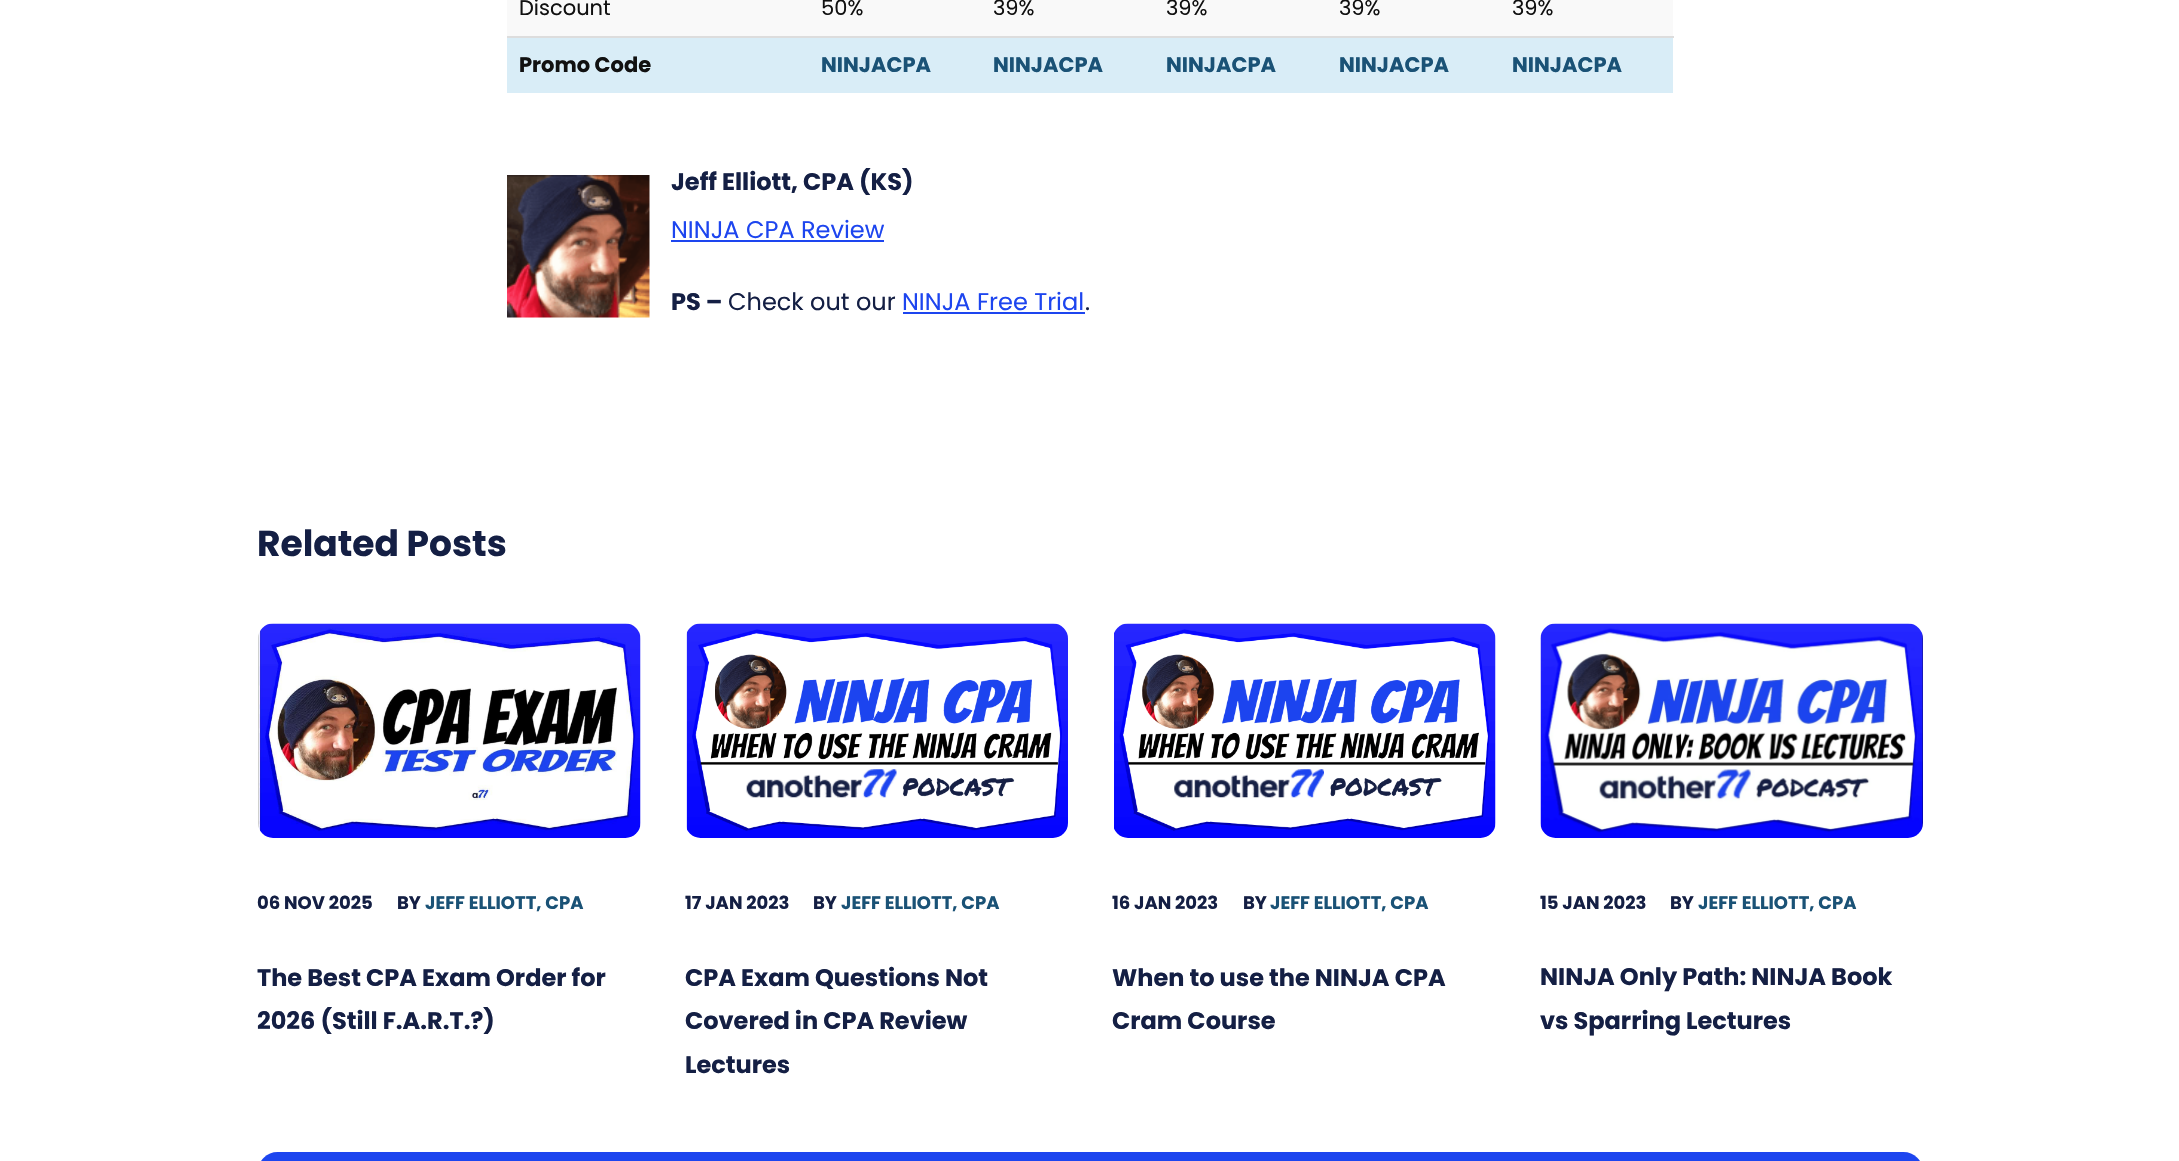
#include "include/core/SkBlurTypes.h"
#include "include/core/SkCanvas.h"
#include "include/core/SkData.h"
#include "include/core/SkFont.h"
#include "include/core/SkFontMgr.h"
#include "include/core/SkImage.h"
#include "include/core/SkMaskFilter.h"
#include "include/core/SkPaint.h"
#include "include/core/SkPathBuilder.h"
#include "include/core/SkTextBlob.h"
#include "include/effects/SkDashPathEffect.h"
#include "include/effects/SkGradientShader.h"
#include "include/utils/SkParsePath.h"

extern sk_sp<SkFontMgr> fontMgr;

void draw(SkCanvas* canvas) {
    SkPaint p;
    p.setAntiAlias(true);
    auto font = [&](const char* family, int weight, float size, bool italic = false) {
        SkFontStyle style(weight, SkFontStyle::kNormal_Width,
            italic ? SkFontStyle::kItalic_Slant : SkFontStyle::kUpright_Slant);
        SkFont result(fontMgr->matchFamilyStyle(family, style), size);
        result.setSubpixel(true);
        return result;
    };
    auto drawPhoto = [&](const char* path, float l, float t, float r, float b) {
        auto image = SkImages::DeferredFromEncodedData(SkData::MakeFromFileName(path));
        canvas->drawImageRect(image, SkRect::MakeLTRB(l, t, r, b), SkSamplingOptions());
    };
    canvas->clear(0xFFFFFFFF);
    p.setColor(0xFFF9F9F9);
    canvas->drawRect(SkRect::MakeLTRB(507, 0, 1673, 36), p);
    auto font1 = font("Poppins", 400, 21);
    p.setColor(0xFF111111);
    {
        const struct { const char* s; float x, y; } items[] = {
            {"Discount", 519, 15},
            {"50%", 821, 15},
            {"39%", 993, 15},
            {"39%", 1166, 15},
            {"39%", 1339, 15},
            {"39%", 1512, 15},
        };
        for (auto [s, x, y] : items) {
            canvas->drawString(s, x, y, font1, p);
        }
    }
    p.setColor(0xFFD9EDF7);
    canvas->drawRect(SkRect::MakeLTRB(507, 38, 1673, 93), p);
    auto font2 = font("Poppins", 700, 21);
    p.setColor(0xFF111111);
    canvas->drawString("Promo Code", 519, 72, font2, p);
    p.setColor(0xFF1A5276);
    {
        const struct { const char* s; float x, y; } items[] = {
            {"NINJACPA", 821, 72},
            {"NINJACPA", 993, 72},
            {"NINJACPA", 1166, 72},
            {"NINJACPA", 1339, 72},
        };
        for (auto [s, x, y] : items) {
            canvas->drawString(s, x, y, font2, p);
        }
    }
    p.setColor(0xFFDDDDDD);
    canvas->drawRect(SkRect::MakeLTRB(507, 36, 1674, 38), p);
    p.setColor(0xFF1A5276);
    canvas->drawString("NINJACPA", 1512, 72, font2, p);
    drawPhoto("media/1.png", 507, 175, 650, 318);
    auto font3 = font("Poppins", 700, 24);
    p.setColor(0xFF141F44);
    canvas->drawString("Jeff Elliott, CPA (KS)", 671, 190, font3, p);
    auto font4 = font("Poppins", 400, 24);
    p.setColor(0xFF1D45EF);
    canvas->drawString("NINJA CPA Review", 671, 238, font4, p);
    canvas->drawRect(SkRect::MakeLTRB(671, 240, 884, 242), p);
    p.setColor(0xFF141F44);
    canvas->drawString("PS –", 671, 310, font3, p);
    canvas->drawString("Check out our", 728, 310, font4, p);
    p.setColor(0xFF1D45EF);
    canvas->drawString("NINJA Free Trial", 902, 310, font4, p);
    canvas->drawRect(SkRect::MakeLTRB(903, 312, 1085, 314), p);
    p.setColor(0xFF141F44);
    canvas->drawString(".", 1085, 310, font4, p);
    auto font5 = font("Poppins", 700, 36);
    canvas->drawString("Related Posts", 257, 556, font5, p);
    drawPhoto("media/2.png", 258, 623, 641, 838);
    auto font6 = font("Poppins", 700, 18);
    canvas->drawString("06 NOV 2025", 257, 909, font6, p);
    canvas->drawString("BY", 397, 909, font6, p);
    p.setColor(0xFF1A5276);
    canvas->drawString("JEFF ELLIOTT, CPA", 425, 909, font6, p);
    p.setColor(0xFF141F44);
    canvas->drawString("The Best CPA Exam Order for", 257, 986, font3, p);
    canvas->drawString("2026 (Still F.A.R.T.?)", 257, 1029, font3, p);
    drawPhoto("media/3.png", 686, 623, 1068, 838);
    canvas->drawString("17 JAN 2023", 685, 909, font6, p);
    canvas->drawString("BY", 813, 909, font6, p);
    p.setColor(0xFF1A5276);
    canvas->drawString("JEFF ELLIOTT, CPA", 841, 909, font6, p);
    p.setColor(0xFF141F44);
    {
        const struct { const char* s; float x, y; } items[] = {
            {"CPA Exam Questions Not", 685, 986},
            {"Covered in CPA Review", 685, 1029},
            {"Lectures", 685, 1073},
        };
        for (auto [s, x, y] : items) {
            canvas->drawString(s, x, y, font3, p);
        }
    }
    drawPhoto("media/4.png", 1114, 623, 1496, 838);
    canvas->drawString("16 JAN 2023", 1112, 909, font6, p);
    canvas->drawString("BY", 1243, 909, font6, p);
    p.setColor(0xFF1A5276);
    canvas->drawString("JEFF ELLIOTT, CPA", 1270, 909, font6, p);
    p.setColor(0xFF141F44);
    canvas->drawString("When to use the NINJA CPA", 1112, 986, font3, p);
    canvas->drawString("Cram Course", 1112, 1029, font3, p);
    drawPhoto("media/5.png", 1540, 623, 1923, 838);
    canvas->drawString("15 JAN 2023", 1540, 909, font6, p);
    canvas->drawString("BY", 1670, 909, font6, p);
    p.setColor(0xFF1A5276);
    canvas->drawString("JEFF ELLIOTT, CPA", 1698, 909, font6, p);
    p.setColor(0xFF141F44);
    canvas->drawString("NINJA Only Path: NINJA Book", 1540, 985, font3, p);
    canvas->drawString("vs Sparring Lectures", 1540, 1029, font3, p);
    p.setColor(0xFF1D45EF);
    canvas->drawRoundRect(SkRect::MakeLTRB(258, 1152, 1923, 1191), 30, 30, p);
}
